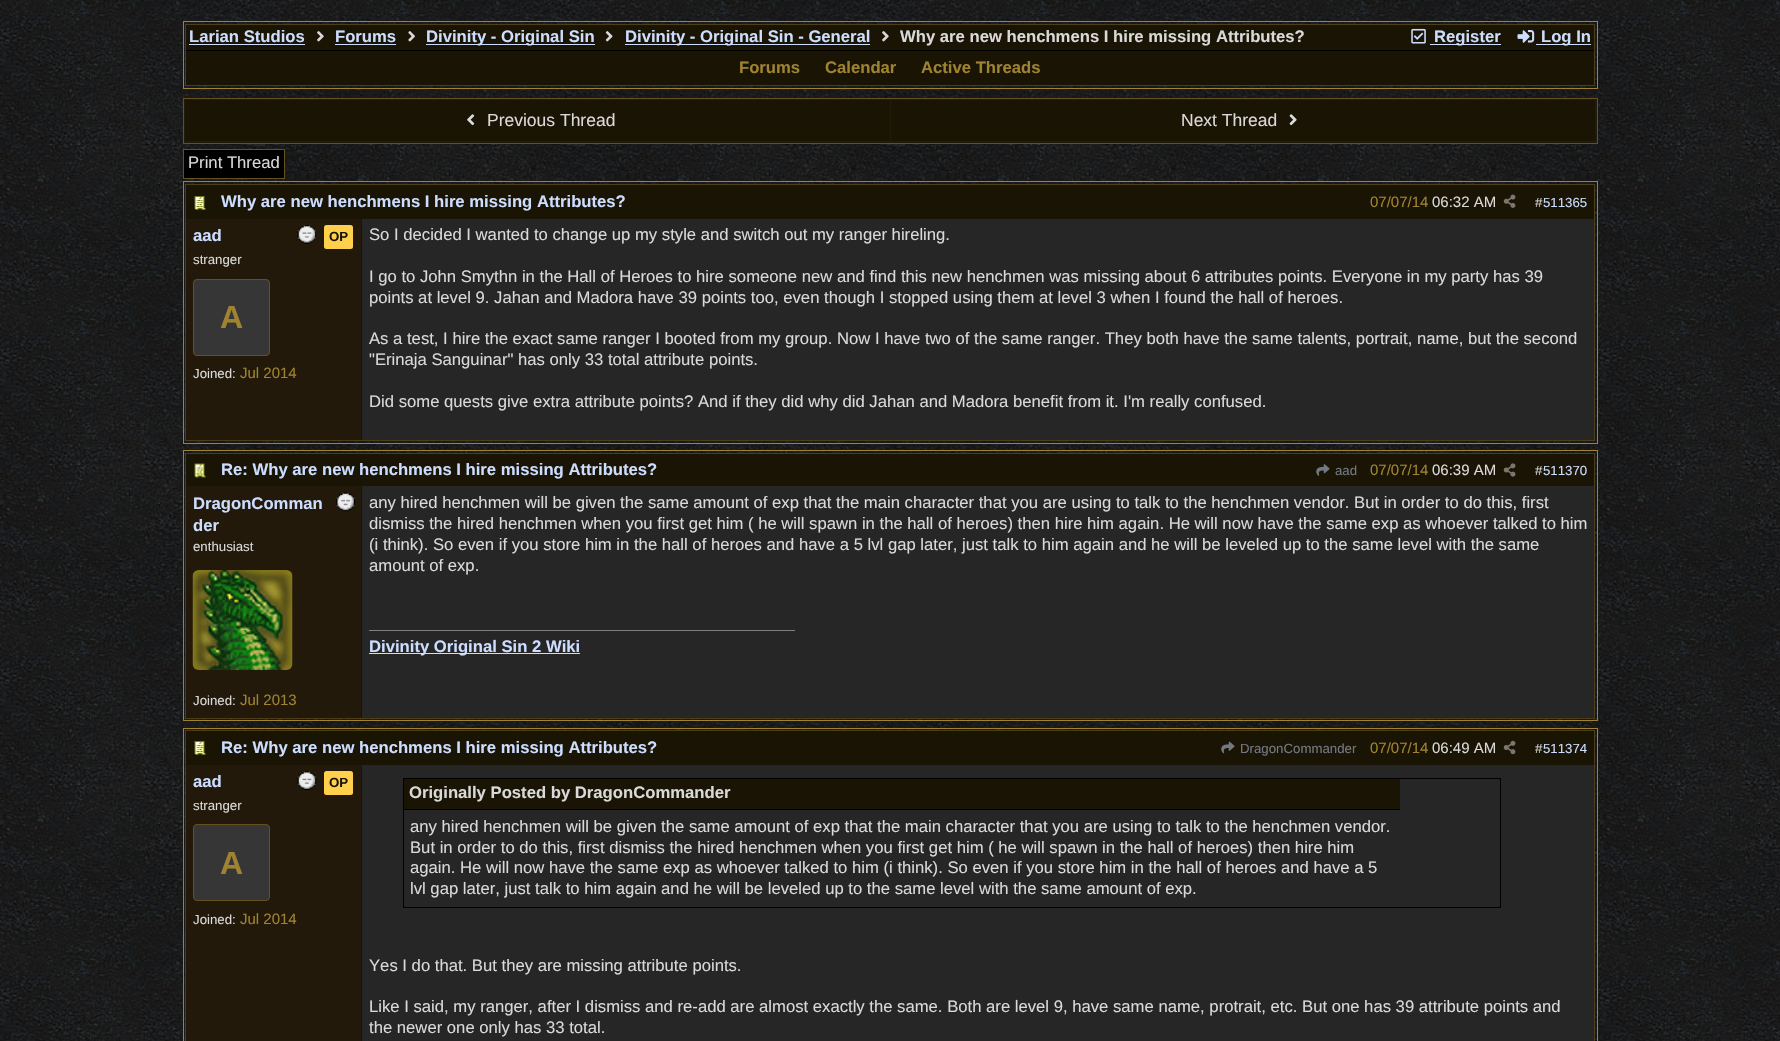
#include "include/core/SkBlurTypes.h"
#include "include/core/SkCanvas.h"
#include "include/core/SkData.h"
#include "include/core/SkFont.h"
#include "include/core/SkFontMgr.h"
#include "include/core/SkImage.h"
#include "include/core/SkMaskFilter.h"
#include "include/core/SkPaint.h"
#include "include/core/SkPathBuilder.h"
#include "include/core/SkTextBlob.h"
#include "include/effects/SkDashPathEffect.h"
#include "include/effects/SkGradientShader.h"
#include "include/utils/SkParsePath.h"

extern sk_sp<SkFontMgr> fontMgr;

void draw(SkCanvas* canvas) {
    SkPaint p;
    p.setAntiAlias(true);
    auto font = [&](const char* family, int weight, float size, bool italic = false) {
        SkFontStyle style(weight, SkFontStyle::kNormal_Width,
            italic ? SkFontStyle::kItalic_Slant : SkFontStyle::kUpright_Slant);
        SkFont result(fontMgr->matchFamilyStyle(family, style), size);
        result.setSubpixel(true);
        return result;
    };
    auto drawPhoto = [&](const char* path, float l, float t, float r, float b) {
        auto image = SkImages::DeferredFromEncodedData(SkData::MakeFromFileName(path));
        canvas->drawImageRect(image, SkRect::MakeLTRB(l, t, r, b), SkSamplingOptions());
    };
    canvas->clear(0xFFFFFFFF);
    drawPhoto("media/1.png", 0, 0, 1780, 1041);
    p.setStyle(SkPaint::kStroke_Style);
    p.setStrokeWidth(1);
    p.setColor(0xFFA08330);
    canvas->drawRect(SkRect::MakeLTRB(183.5f, 21.5f, 1597.5f, 88.5f), p);
    p.setColor(0xFF4D3E1A);
    canvas->drawRect(SkRect::MakeLTRB(185.5f, 24.5f, 1594.5f, 85.5f), p);
    p.setStyle(SkPaint::kFill_Style);
    p.setColor(0xFF1A1405);
    canvas->drawRect(SkRect::MakeLTRB(186, 25, 1594, 50), p);
    auto font1 = font("Liberation Sans", 700, 16.67f);
    p.setColor(0xFFCCDDFF);
    canvas->drawString("Larian Studios", 189, 42, font1, p);
    canvas->drawRect(SkRect::MakeLTRB(189, 44, 305, 45), p);
    drawPhoto("media/2.png", 317, 31, 324, 42);
    canvas->drawString("Forums", 335, 42, font1, p);
    canvas->drawRect(SkRect::MakeLTRB(335, 44, 396, 45), p);
    drawPhoto("media/3.png", 408, 31, 415, 42);
    canvas->drawRect(SkRect::MakeLTRB(426, 44, 595, 45), p);
    canvas->drawString("Divinity - Original Sin", 426, 42, font1, p);
    drawPhoto("media/4.png", 605, 31, 613, 42);
    canvas->drawRect(SkRect::MakeLTRB(625, 44, 870, 45), p);
    canvas->drawString("Divinity - Original Sin - General", 625, 42, font1, p);
    drawPhoto("media/2.png", 882, 31, 889, 42);
    p.setColor(0xFFD9D9D9);
    canvas->drawString("Why are new henchmens I hire missing Attributes?", 900, 42, font1, p);
    drawPhoto("media/5.png", 1411, 28, 1426, 44);
    p.setColor(0xFFCCDDFF);
    canvas->drawRect(SkRect::MakeLTRB(1430, 44, 1501, 45), p);
    canvas->drawString("Register", 1434, 42, font1, p);
    drawPhoto("media/6.png", 1517, 30, 1535, 43);
    canvas->drawRect(SkRect::MakeLTRB(1536, 44, 1591, 45), p);
    canvas->drawString("Log In", 1541, 42, font1, p);
    p.setColor(0xFF1A1405);
    canvas->drawRect(SkRect::MakeLTRB(186, 51, 1594, 85), p);
    p.setColor(0xFF000000);
    canvas->drawRect(SkRect::MakeLTRB(186, 50, 1594, 51), p);
    p.setColor(0xFFA08330);
    {
        const struct { const char* s; float x, y; } items[] = {
            {"Forums", 739, 73},
            {"Calendar", 825, 73},
            {"Active Threads", 921, 73},
        };
        for (auto [s, x, y] : items) {
            canvas->drawString(s, x, y, font1, p);
        }
    }
    p.setColor(0xFF221B08);
    canvas->drawRect(SkRect::MakeLTRB(183.5f, 98.5f, 1597.5f, 143.5f), p);
    p.setStyle(SkPaint::kStroke_Style);
    p.setColor(0xFF65501E);
    canvas->drawRect(SkRect::MakeLTRB(183.5f, 98.5f, 1597.5f, 143.5f), p);
    p.setStyle(SkPaint::kFill_Style);
    p.setColor(0xFF1A1405);
    canvas->drawRect(SkRect::MakeLTRB(185, 100, 890, 141), p);
    drawPhoto("media/7.png", 467, 114, 475, 126);
    auto font2 = font("Liberation Sans", 400, 17.5f);
    p.setColor(0xFFD9D9D9);
    canvas->drawString("Previous Thread", 487, 126, font2, p);
    p.setColor(0xFF1A1405);
    canvas->drawRect(SkRect::MakeLTRB(891, 100, 1595, 141), p);
    p.setColor(0xFFD9D9D9);
    canvas->drawString("Next Thread", 1181, 126, font2, p);
    drawPhoto("media/8.png", 1289, 114, 1297, 126);
    p.setStyle(SkPaint::kStroke_Style);
    p.setColor(0xFF65501E);
    canvas->drawRect(SkRect::MakeLTRB(183.5f, 149.5f, 284.5f, 178.5f), p);
    p.setStyle(SkPaint::kFill_Style);
    p.setColor(0xFF000000);
    canvas->drawRect(SkRect::MakeLTRB(184, 150, 284, 178), p);
    auto font3 = font("Liberation Sans", 400, 16.67f);
    p.setColor(0xFFD9D9D9);
    canvas->drawString("Print Thread", 188, 168, font3, p);
    p.setStyle(SkPaint::kStroke_Style);
    p.setColor(0xFFA08330);
    canvas->drawRect(SkRect::MakeLTRB(183.5f, 181.5f, 1597.5f, 443.5f), p);
    p.setColor(0xFF4D3E1A);
    canvas->drawRect(SkRect::MakeLTRB(185.5f, 184.5f, 1594.5f, 440.5f), p);
    p.setStyle(SkPaint::kFill_Style);
    p.setColor(0xFF1A1405);
    canvas->drawRect(SkRect::MakeLTRB(186, 185, 1594, 219), p);
    drawPhoto("media/9.png", 194, 196, 206, 210);
    p.setColor(0xFFCCDDFF);
    canvas->drawString("Why are new henchmens I hire missing Attributes?", 221, 207, font1, p);
    auto font4 = font("Liberation Sans", 400, 15);
    p.setColor(0xFFA08330);
    canvas->drawString("07/07/14", 1370, 207, font4, p);
    p.setColor(0xFFD9D9D9);
    canvas->drawString("06:32 AM", 1432, 207, font4, p);
    drawPhoto("media/10.png", 1503, 194, 1516, 208);
    auto font5 = font("Liberation Sans", 400, 13.25f);
    canvas->drawString("#", 1535, 207, font5, p);
    p.setColor(0xFFCCDDFF);
    canvas->drawString("511365", 1543, 207, font5, p);
    p.setColor(0xFF22190A);
    canvas->drawRect(SkRect::MakeLTRB(186, 219, 361, 440), p);
    p.setColor(0xFFCCDDFF);
    canvas->drawString("aad", 193, 241, font1, p);
    drawPhoto("media/11.png", 297, 225, 317, 244);
    p.setColor(0xFFFFD04C);
    canvas->drawRoundRect(SkRect::MakeLTRB(324, 225, 353, 249), 2.5f, 2.5f, p);
    auto font6 = font("Liberation Sans", 700, 13.25f);
    p.setColor(0xFF1A1405);
    canvas->drawString("OP", 329, 241, font6, p);
    p.setColor(0xFFD9D9D9);
    canvas->drawString("stranger", 193, 264, font5, p);
    p.setColor(0xFF363636);
    canvas->drawRoundRect(SkRect::MakeLTRB(193.5f, 279.5f, 269.5f, 355.5f), 3.5f, 3.5f, p);
    p.setStyle(SkPaint::kStroke_Style);
    p.setColor(0xFF65501E);
    canvas->drawRoundRect(SkRect::MakeLTRB(193.5f, 279.5f, 269.5f, 355.5f), 3.5f, 3.5f, p);
    auto font7 = font("Liberation Sans", 700, 32);
    p.setStyle(SkPaint::kFill_Style);
    p.setColor(0xFFA08330);
    canvas->drawString("A", 220, 328, font7, p);
    p.setColor(0xFFD9D9D9);
    canvas->drawString("Joined:", 193, 378, font5, p);
    p.setColor(0xFFA08330);
    canvas->drawString("Jul 2014", 240, 378, font4, p);
    p.setColor(0xFF262626);
    canvas->drawRect(SkRect::MakeLTRB(362, 219, 1594, 440), p);
    p.setColor(0xFF1A1405);
    canvas->drawRect(SkRect::MakeLTRB(361, 219, 362, 440), p);
    p.setColor(0xFFD9D9D9);
    {
        const struct { const char* s; float x, y; } items[] = {
            {"So I decided I wanted to change up my style and switch out my ranger hireling.", 369, 240},
            {"I go to John Smythn in the Hall of Heroes to hire someone new and find this new henchmen was missing about 6 attributes points. Everyone in my party has 39", 369, 282},
            {"points at level 9. Jahan and Madora have 39 points too, even though I stopped using them at level 3 when I found the hall of heroes.", 369, 303},
            {"As a test, I hire the exact same ranger I booted from my group. Now I have two of the same ranger. They both have the same talents, portrait, name, but the second", 369, 344},
            {"\"Erinaja Sanguinar\" has only 33 total attribute points.", 369, 365},
            {"Did some quests give extra attribute points? And if they did why did Jahan and Madora benefit from it. I'm really confused.", 369, 407},
        };
        for (auto [s, x, y] : items) {
            canvas->drawString(s, x, y, font3, p);
        }
    }
    p.setStyle(SkPaint::kStroke_Style);
    p.setColor(0xFFA08330);
    canvas->drawRect(SkRect::MakeLTRB(183.5f, 450.5f, 1597.5f, 720.5f), p);
    p.setColor(0xFF4D3E1A);
    canvas->drawRect(SkRect::MakeLTRB(185.5f, 453.5f, 1594.5f, 718.5f), p);
    p.setStyle(SkPaint::kFill_Style);
    p.setColor(0xFF1A1405);
    canvas->drawRect(SkRect::MakeLTRB(186, 454, 1594, 486), p);
    drawPhoto("media/12.png", 194, 463, 206, 478);
    p.setColor(0xFFCCDDFF);
    canvas->drawString("Re: Why are new henchmens I hire missing Attributes?", 221, 475, font1, p);
    drawPhoto("media/13.png", 1316, 464, 1330, 476);
    p.setColor(0xFF737982);
    canvas->drawString("aad", 1335, 475, font5, p);
    p.setColor(0xFFA08330);
    canvas->drawString("07/07/14", 1370, 475, font4, p);
    p.setColor(0xFFD9D9D9);
    canvas->drawString("06:39 AM", 1432, 475, font4, p);
    drawPhoto("media/14.png", 1503, 463, 1516, 477);
    canvas->drawString("#", 1535, 475, font5, p);
    p.setColor(0xFFCCDDFF);
    canvas->drawString("511370", 1543, 475, font5, p);
    p.setColor(0xFF22190A);
    canvas->drawRect(SkRect::MakeLTRB(186, 486, 361, 718), p);
    p.setColor(0xFFCCDDFF);
    canvas->drawString("DragonComman", 193, 509, font1, p);
    canvas->drawString("der", 193, 531, font1, p);
    drawPhoto("media/15.png", 336, 492, 355, 512);
    p.setColor(0xFFD9D9D9);
    canvas->drawString("enthusiast", 193, 551, font5, p);
    drawPhoto("media/16.png", 192, 570, 293, 670);
    canvas->drawString("Joined:", 193, 705, font5, p);
    p.setColor(0xFFA08330);
    canvas->drawString("Jul 2013", 240, 705, font4, p);
    p.setColor(0xFF262626);
    canvas->drawRect(SkRect::MakeLTRB(362, 486, 1594, 718), p);
    p.setColor(0xFF1A1405);
    canvas->drawRect(SkRect::MakeLTRB(361, 486, 362, 718), p);
    p.setColor(0xFFD9D9D9);
    {
        const struct { const char* s; float x, y; } items[] = {
            {"any hired henchmen will be given the same amount of exp that the main character that you are using to talk to the henchmen vendor. But in order to do this, first", 369, 508},
            {"dismiss the hired henchmen when you first get him ( he will spawn in the hall of heroes) then hire him again. He will now have the same exp as whoever talked to him", 369, 529},
            {"(i think). So even if you store him in the hall of heroes and have a 5 lvl gap later, just talk to him again and he will be leveled up to the same level with the same", 369, 550},
            {"amount of exp.", 369, 571},
        };
        for (auto [s, x, y] : items) {
            canvas->drawString(s, x, y, font3, p);
        }
    }
    p.setColor(0xFF808080);
    canvas->drawRect(SkRect::MakeLTRB(369, 630, 795, 631), p);
    p.setColor(0xFFCCDDFF);
    canvas->drawRect(SkRect::MakeLTRB(369, 653, 580, 654), p);
    canvas->drawString("Divinity Original Sin 2 Wiki", 369, 652, font1, p);
    p.setStyle(SkPaint::kStroke_Style);
    p.setColor(0xFFA08330);
    canvas->drawRect(SkRect::MakeLTRB(183.5f, 728.5f, 1597.5f, 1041.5f), p);
    p.setColor(0xFF4D3E1A);
    canvas->drawRect(SkRect::MakeLTRB(185.5f, 730.5f, 1594.5f, 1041.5f), p);
    p.setStyle(SkPaint::kFill_Style);
    p.setColor(0xFF1A1405);
    canvas->drawRect(SkRect::MakeLTRB(186, 731, 1594, 765), p);
    drawPhoto("media/9.png", 194, 741, 206, 755);
    p.setColor(0xFFCCDDFF);
    canvas->drawString("Re: Why are new henchmens I hire missing Attributes?", 221, 753, font1, p);
    drawPhoto("media/17.png", 1221, 741, 1235, 754);
    p.setColor(0xFF737982);
    canvas->drawString("DragonCommander", 1240, 753, font5, p);
    p.setColor(0xFFA08330);
    canvas->drawString("07/07/14", 1370, 753, font4, p);
    p.setColor(0xFFD9D9D9);
    canvas->drawString("06:49 AM", 1432, 753, font4, p);
    drawPhoto("media/18.png", 1503, 740, 1516, 755);
    canvas->drawString("#", 1535, 753, font5, p);
    p.setColor(0xFFCCDDFF);
    canvas->drawString("511374", 1543, 753, font5, p);
    p.setColor(0xFF22190A);
    canvas->drawRect(SkRect::MakeLTRB(186, 765, 361, 1041), p);
    p.setColor(0xFFCCDDFF);
    canvas->drawString("aad", 193, 787, font1, p);
    drawPhoto("media/19.png", 297, 771, 317, 790);
    p.setColor(0xFFFFD04C);
    canvas->drawRoundRect(SkRect::MakeLTRB(324, 771, 353, 795), 2.5f, 2.5f, p);
    p.setColor(0xFF1A1405);
    canvas->drawString("OP", 329, 787, font6, p);
    p.setColor(0xFFD9D9D9);
    canvas->drawString("stranger", 193, 810, font5, p);
    p.setColor(0xFF363636);
    canvas->drawRoundRect(SkRect::MakeLTRB(193.5f, 824.5f, 269.5f, 900.5f), 3.5f, 3.5f, p);
    p.setStyle(SkPaint::kStroke_Style);
    p.setColor(0xFF65501E);
    canvas->drawRoundRect(SkRect::MakeLTRB(193.5f, 824.5f, 269.5f, 900.5f), 3.5f, 3.5f, p);
    p.setStyle(SkPaint::kFill_Style);
    p.setColor(0xFFA08330);
    canvas->drawString("A", 220, 874, font7, p);
    p.setColor(0xFFD9D9D9);
    canvas->drawString("Joined:", 193, 924, font5, p);
    p.setColor(0xFFA08330);
    canvas->drawString("Jul 2014", 240, 924, font4, p);
    p.setColor(0xFF262626);
    canvas->drawRect(SkRect::MakeLTRB(362, 765, 1594, 1041), p);
    p.setColor(0xFF1A1405);
    canvas->drawRect(SkRect::MakeLTRB(361, 765, 362, 1041), p);
    p.setStyle(SkPaint::kStroke_Style);
    p.setColor(0xFF000000);
    canvas->drawRect(SkRect::MakeLTRB(403.5f, 778.5f, 1500.5f, 907.5f), p);
    p.setStyle(SkPaint::kFill_Style);
    p.setColor(0xFF1A1405);
    canvas->drawRect(SkRect::MakeLTRB(404, 779, 1400, 809), p);
    p.setColor(0xFF000000);
    canvas->drawRect(SkRect::MakeLTRB(404, 809, 1400, 810), p);
    p.setColor(0xFFD9D9D9);
    canvas->drawString("Originally Posted by DragonCommander", 409, 798, font1, p);
    {
        const struct { const char* s; float x, y; } items[] = {
            {"any hired henchmen will be given the same amount of exp that the main character that you are using to talk to the henchmen vendor.", 410, 832},
            {"But in order to do this, first dismiss the hired henchmen when you first get him ( he will spawn in the hall of heroes) then hire him", 410, 853},
            {"again. He will now have the same exp as whoever talked to him (i think). So even if you store him in the hall of heroes and have a 5", 410, 873},
            {"lvl gap later, just talk to him again and he will be leveled up to the same level with the same amount of exp.", 410, 894},
            {"Yes I do that. But they are missing attribute points.", 369, 971},
            {"Like I said, my ranger, after I dismiss and re-add are almost exactly the same. Both are level 9, have same name, protrait, etc. But one has 39 attribute points and", 369, 1012},
            {"the newer one only has 33 total.", 369, 1033},
        };
        for (auto [s, x, y] : items) {
            canvas->drawString(s, x, y, font3, p);
        }
    }
}
